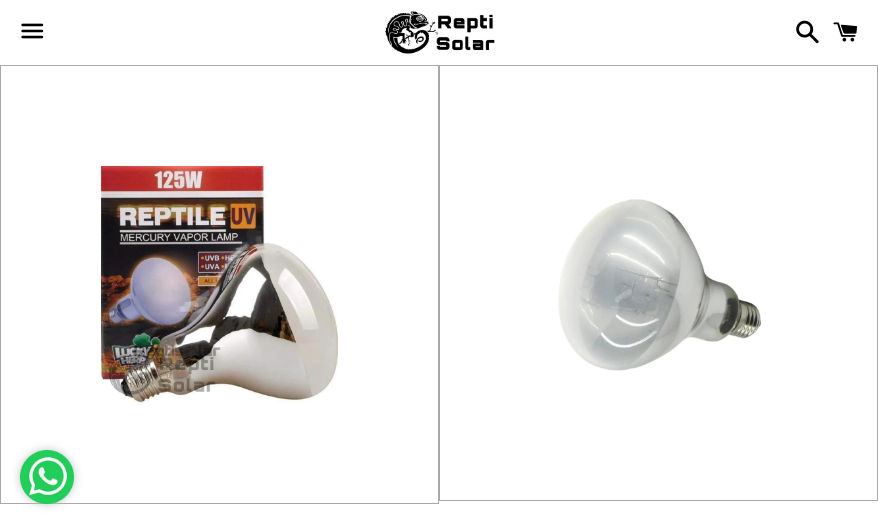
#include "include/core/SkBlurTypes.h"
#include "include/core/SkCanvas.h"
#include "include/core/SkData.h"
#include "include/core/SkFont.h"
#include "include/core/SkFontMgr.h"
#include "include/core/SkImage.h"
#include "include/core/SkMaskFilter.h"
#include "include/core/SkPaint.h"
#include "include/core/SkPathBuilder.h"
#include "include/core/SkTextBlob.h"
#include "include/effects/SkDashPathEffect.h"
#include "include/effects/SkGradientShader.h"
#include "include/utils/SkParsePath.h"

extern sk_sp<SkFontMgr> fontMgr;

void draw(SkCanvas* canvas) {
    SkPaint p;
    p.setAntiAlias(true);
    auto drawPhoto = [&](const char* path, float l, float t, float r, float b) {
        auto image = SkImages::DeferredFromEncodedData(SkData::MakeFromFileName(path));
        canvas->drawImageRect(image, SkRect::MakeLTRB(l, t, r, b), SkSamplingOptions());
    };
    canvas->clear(0xFFFFFFFF);
    drawPhoto("media/1.png", 21, 23, 44, 39);
    drawPhoto("media/2.png", 385, 11, 495, 54);
    drawPhoto("media/3.png", 796, 20, 819, 44);
    drawPhoto("media/4.png", 833, 22, 858, 42);
    p.setStyle(SkPaint::kStroke_Style);
    p.setStrokeWidth(1);
    p.setColor(0xFFA9A9A9);
    canvas->drawRect(SkRect::MakeLTRB(0.5f, 65.5f, 438.5f, 503.5f), p);
    drawPhoto("media/5.png", 101, 166, 338, 403);
    canvas->drawRect(SkRect::MakeLTRB(439.5f, 65.5f, 877.5f, 500.5f), p);
    drawPhoto("media/6.png", 558, 199, 762, 371);
    p.setStyle(SkPaint::kFill_Style);
    p.setColor(0xFFC2C2C2);
    p.setMaskFilter(SkMaskFilter::MakeBlur(kNormal_SkBlurStyle, 4));
    canvas->drawRoundRect(SkRect::MakeLTRB(20, 450, 74, 504), 27, 27, p);
    p.setMaskFilter(nullptr);
    drawPhoto("media/7.png", 20, 450, 74, 504);
}
